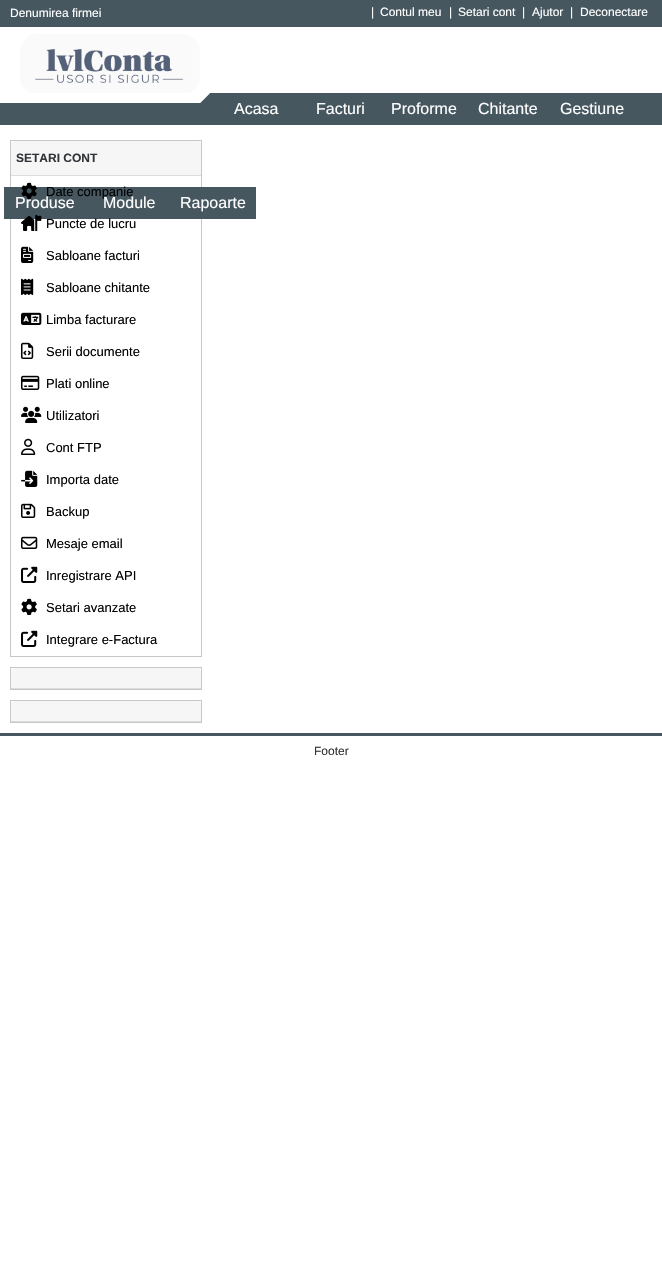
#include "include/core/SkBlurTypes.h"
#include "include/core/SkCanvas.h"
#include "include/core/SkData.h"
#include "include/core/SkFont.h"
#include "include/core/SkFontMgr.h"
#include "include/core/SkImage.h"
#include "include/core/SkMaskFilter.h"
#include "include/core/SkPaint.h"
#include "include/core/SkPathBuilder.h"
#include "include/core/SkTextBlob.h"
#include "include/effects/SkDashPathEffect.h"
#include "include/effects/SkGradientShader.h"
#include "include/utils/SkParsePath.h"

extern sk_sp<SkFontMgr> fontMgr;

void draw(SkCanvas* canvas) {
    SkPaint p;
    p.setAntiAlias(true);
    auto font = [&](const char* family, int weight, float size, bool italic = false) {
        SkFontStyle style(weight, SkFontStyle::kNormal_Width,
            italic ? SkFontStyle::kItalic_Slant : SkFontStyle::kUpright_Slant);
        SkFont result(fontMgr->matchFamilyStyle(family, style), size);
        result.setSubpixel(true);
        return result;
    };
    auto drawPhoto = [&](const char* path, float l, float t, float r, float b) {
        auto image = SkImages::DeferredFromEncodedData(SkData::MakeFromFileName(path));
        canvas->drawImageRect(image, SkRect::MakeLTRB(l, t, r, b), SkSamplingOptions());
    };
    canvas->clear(0xFFFFFFFF);
    p.setColor(0xFF465760);
    canvas->drawRect(SkRect::MakeLTRB(0, 0, 662, 27), p);
    auto font1 = font("Liberation Sans", 400, 12);
    p.setColor(0xFFFFFFFF);
    {
        const struct { const char* s; float x, y; } items[] = {
            {"Denumirea firmei", 10, 17},
            {"|", 371, 16},
            {"Contul meu", 380, 16},
            {"|", 449, 16},
            {"Setari cont", 458, 16},
            {"|", 522, 16},
            {"Ajutor", 532, 16},
            {"|", 570, 16},
            {"Deconectare", 580, 16},
        };
        for (auto [s, x, y] : items) {
            canvas->drawString(s, x, y, font1, p);
        }
    }
    p.setColor(0xFF465760);
    canvas->drawRect(SkRect::MakeLTRB(0, 103, 210, 125), p);
    drawPhoto("media/1.png", 20, 34, 200, 93);
    canvas->drawPath(SkPathBuilder().moveTo(210, 103).lineTo(200, 103).lineTo(210, 93).close().detach(), p);
    p.setColor(0xFFFFFFFF);
    canvas->drawPath(SkPathBuilder().moveTo(200, 103).lineTo(200, 93).lineTo(210, 93).close().detach(), p);
    p.setColor(0xFF465760);
    canvas->drawRect(SkRect::MakeLTRB(210, 93, 662, 125), p);
    auto font2 = font("Liberation Sans", 400, 16);
    p.setColor(0xFFFFFFFF);
    {
        const struct { const char* s; float x, y; } items[] = {
            {"Acasa", 234, 114},
            {"Facturi", 316, 114},
            {"Proforme", 391, 114},
            {"Chitante", 478, 114},
            {"Gestiune", 560, 114},
        };
        for (auto [s, x, y] : items) {
            canvas->drawString(s, x, y, font2, p);
        }
    }
    p.setStyle(SkPaint::kStroke_Style);
    p.setStrokeWidth(1);
    p.setColor(0xFFC7C7C9);
    canvas->drawRect(SkRect::MakeLTRB(10.5f, 140.5f, 201.5f, 656.5f), p);
    p.setStyle(SkPaint::kFill_Style);
    p.setColor(0xFF465760);
    canvas->drawRect(SkRect::MakeLTRB(4, 187, 256, 219), p);
    p.setColor(0xFFFFFFFF);
    {
        const struct { const char* s; float x, y; } items[] = {
            {"Produse", 15, 208},
            {"Module", 103, 208},
            {"Rapoarte", 180, 208},
        };
        for (auto [s, x, y] : items) {
            canvas->drawString(s, x, y, font2, p);
        }
    }
    p.setColor(0xFFF6F6F6);
    canvas->drawPath(SkPathBuilder().moveTo(15, 141).lineTo(197, 141).cubicTo(199, 141, 201, 143, 201, 145).lineTo(201, 176).lineTo(11, 176).lineTo(11, 145).cubicTo(11, 143, 13, 141, 15, 141).close().detach(), p);
    p.setColor(0xFFDDDDDD);
    canvas->drawRect(SkRect::MakeLTRB(11, 175, 201, 176), p);
    auto font3 = font("Liberation Sans", 700, 12);
    p.setColor(0xFF313439);
    canvas->drawString("SETARI CONT", 16, 162, font3, p);
    drawPhoto("media/2.png", 21, 182, 37, 199);
    auto font4 = font("Liberation Sans", 400, 13);
    p.setColor(0xFF000000);
    canvas->drawString("Date companie", 46, 196, font4, p);
    drawPhoto("media/3.png", 21, 214, 42, 231);
    canvas->drawString("Puncte de lucru", 46, 228, font4, p);
    drawPhoto("media/4.png", 21, 246, 34, 263);
    canvas->drawString("Sabloane facturi", 46, 260, font4, p);
    drawPhoto("media/5.png", 21, 278, 34, 295);
    canvas->drawString("Sabloane chitante", 46, 292, font4, p);
    drawPhoto("media/6.png", 21, 312, 42, 325);
    canvas->drawString("Limba facturare", 46, 324, font4, p);
    drawPhoto("media/7.png", 21, 342, 34, 359);
    canvas->drawString("Serii documente", 46, 356, font4, p);
    drawPhoto("media/8.png", 21, 375, 40, 390);
    canvas->drawString("Plati online", 46, 388, font4, p);
    drawPhoto("media/9.png", 21, 406, 42, 423);
    canvas->drawString("Utilizatori", 46, 420, font4, p);
    drawPhoto("media/10.png", 21, 438, 36, 455);
    canvas->drawString("Cont FTP", 46, 452, font4, p);
    drawPhoto("media/11.png", 21, 470, 38, 487);
    canvas->drawString("Importa date", 46, 484, font4, p);
    drawPhoto("media/12.png", 21, 503, 36, 518);
    canvas->drawString("Backup", 46, 516, font4, p);
    drawPhoto("media/13.png", 21, 536, 38, 549);
    canvas->drawString("Mesaje email", 46, 548, font4, p);
    drawPhoto("media/14.png", 21, 566, 38, 583);
    canvas->drawString("Inregistrare API", 46, 580, font4, p);
    drawPhoto("media/15.png", 21, 598, 37, 615);
    canvas->drawString("Setari avanzate", 46, 612, font4, p);
    drawPhoto("media/14.png", 21, 630, 38, 647);
    canvas->drawString("Integrare e-Factura", 46, 644, font4, p);
    p.setStyle(SkPaint::kStroke_Style);
    p.setColor(0xFFC7C7C9);
    canvas->drawRect(SkRect::MakeLTRB(10.5f, 667.5f, 201.5f, 689.5f), p);
    p.setStyle(SkPaint::kFill_Style);
    p.setColor(0xFFF6F6F6);
    canvas->drawPath(SkPathBuilder().moveTo(15, 668).lineTo(197, 668).cubicTo(199, 668, 201, 670, 201, 672).lineTo(201, 689).lineTo(11, 689).lineTo(11, 672).cubicTo(11, 670, 13, 668, 15, 668).close().detach(), p);
    p.setColor(0xFFDDDDDD);
    canvas->drawRect(SkRect::MakeLTRB(11, 688, 201, 689), p);
    p.setStyle(SkPaint::kStroke_Style);
    p.setColor(0xFFC7C7C9);
    canvas->drawRect(SkRect::MakeLTRB(10.5f, 700.5f, 201.5f, 722.5f), p);
    p.setStyle(SkPaint::kFill_Style);
    p.setColor(0xFFF6F6F6);
    canvas->drawPath(SkPathBuilder().moveTo(15, 701).lineTo(197, 701).cubicTo(199, 701, 201, 703, 201, 705).lineTo(201, 722).lineTo(11, 722).lineTo(11, 705).cubicTo(11, 703, 13, 701, 15, 701).close().detach(), p);
    p.setColor(0xFFDDDDDD);
    canvas->drawRect(SkRect::MakeLTRB(11, 721, 201, 722), p);
    p.setColor(0xFF465760);
    canvas->drawRect(SkRect::MakeLTRB(0, 733, 662, 736), p);
    p.setColor(0xFF333333);
    canvas->drawString("Footer", 314, 755, font1, p);
}
